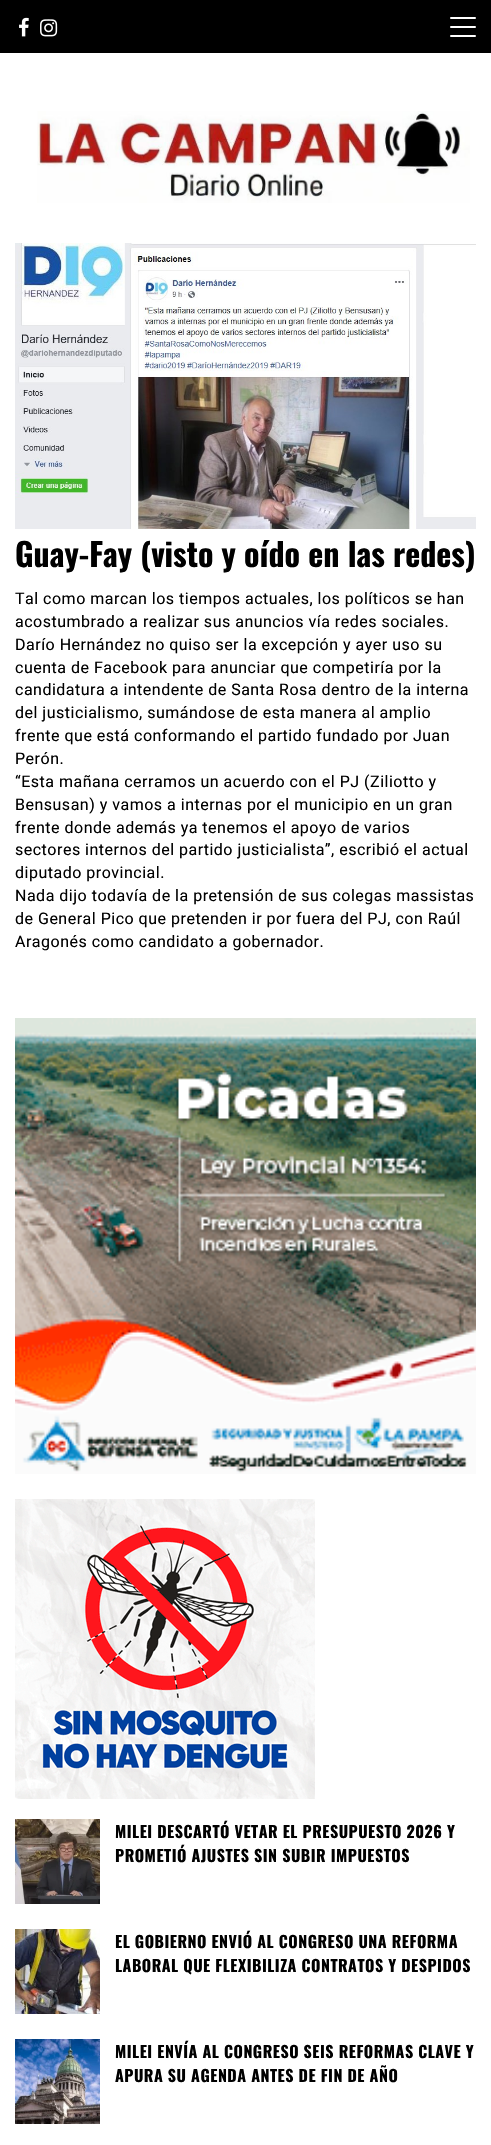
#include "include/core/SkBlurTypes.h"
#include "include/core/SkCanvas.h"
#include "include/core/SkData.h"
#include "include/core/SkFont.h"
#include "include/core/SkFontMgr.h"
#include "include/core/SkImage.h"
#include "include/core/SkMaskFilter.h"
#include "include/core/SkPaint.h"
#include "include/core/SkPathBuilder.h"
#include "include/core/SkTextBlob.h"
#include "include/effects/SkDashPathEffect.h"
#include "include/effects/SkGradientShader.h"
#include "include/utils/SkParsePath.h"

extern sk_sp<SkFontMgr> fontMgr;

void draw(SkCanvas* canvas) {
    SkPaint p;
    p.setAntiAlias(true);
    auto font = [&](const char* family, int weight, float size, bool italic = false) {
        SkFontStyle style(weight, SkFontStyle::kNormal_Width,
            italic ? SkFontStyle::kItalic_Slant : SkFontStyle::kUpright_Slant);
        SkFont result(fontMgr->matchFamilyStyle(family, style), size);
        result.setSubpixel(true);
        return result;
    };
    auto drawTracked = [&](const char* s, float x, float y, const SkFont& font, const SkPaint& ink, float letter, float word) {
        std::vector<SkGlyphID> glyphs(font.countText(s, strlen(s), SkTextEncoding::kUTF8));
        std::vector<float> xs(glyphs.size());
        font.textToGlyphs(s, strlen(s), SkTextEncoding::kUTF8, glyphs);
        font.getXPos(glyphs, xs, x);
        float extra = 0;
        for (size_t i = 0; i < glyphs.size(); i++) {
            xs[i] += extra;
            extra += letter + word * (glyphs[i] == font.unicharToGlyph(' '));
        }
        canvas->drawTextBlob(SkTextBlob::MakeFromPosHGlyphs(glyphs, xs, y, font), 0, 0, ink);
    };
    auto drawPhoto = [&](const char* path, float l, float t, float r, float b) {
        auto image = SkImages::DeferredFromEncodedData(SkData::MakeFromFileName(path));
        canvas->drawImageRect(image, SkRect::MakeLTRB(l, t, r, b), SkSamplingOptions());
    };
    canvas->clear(0xFFFFFFFF);
    p.setColor(0xFF000000);
    canvas->drawRect(SkRect::MakeLTRB(0, 0, 491, 53), p);
    drawPhoto("media/1.png", 19, 17, 29, 37);
    drawPhoto("media/2.png", 40, 19, 58, 37);
    p.setColor(0xFFFFFFFF);
    canvas->drawRoundRect(SkRect::MakeLTRB(450, 26, 476, 28), 1, 1, p);
    canvas->drawRoundRect(SkRect::MakeLTRB(450, 17, 476, 19), 1, 1, p);
    canvas->drawRoundRect(SkRect::MakeLTRB(450, 35, 476, 37), 1, 1, p);
    drawPhoto("media/3.png", 37, 111, 470, 203);
    drawPhoto("media/4.png", 15, 243, 476, 529);
    auto font1 = font("Oswald", 700, 32);
    p.setColor(0xFF000000);
    canvas->drawString("Guay-Fay (visto y oído en las redes)", 15, 567, font1, p);
    auto font2 = font("Roboto", 400, 16);
    {
        const struct { const char* s; float x, y; } items[] = {
            {"Tal como marcan los tiempos actuales, los políticos se han", 15, 604},
            {"acostumbrado a realizar sus anuncios vía redes sociales.", 15, 627},
            {"Darío Hernández no quiso ser la excepción y ayer uso su", 15, 650},
            {"cuenta de Facebook para anunciar que competiría por la", 15, 673},
            {"candidatura a intendente de Santa Rosa dentro de la interna", 15, 695},
            {"del justicialismo, sumándose de esta manera al amplio", 15, 718},
            {"frente que está conformando el partido fundado por Juan", 15, 741},
            {"Perón.", 15, 764},
            {"“Esta mañana cerramos un acuerdo con el PJ (Ziliotto y", 15, 787},
            {"Bensusan) y vamos a internas por el municipio en un gran", 15, 810},
            {"frente donde además ya tenemos el apoyo de varios", 15, 833},
            {"sectores internos del partido justicialista”, escribió el actual", 15, 855},
            {"diputado provincial.", 15, 878},
            {"Nada dijo todavía de la pretensión de sus colegas massistas", 15, 901},
            {"de General Pico que pretenden ir por fuera del PJ, con Raúl", 15, 924},
            {"Aragonés como candidato a gobernador.", 15, 947},
        };
        for (auto [s, x, y] : items) {
            drawTracked(s, x, y, font2, p, 0.5f, 0);
        }
    }
    drawPhoto("media/5.png", 15, 1018, 476, 1474);
    drawPhoto("media/6.png", 15, 1499, 315, 1799);
    drawPhoto("media/7.png", 15, 1819, 100, 1904);
    auto font3 = font("Oswald", 700, 16);
    drawTracked("MILEI DESCARTÓ VETAR EL PRESUPUESTO 2026 Y", 115, 1838, font3, p, 0.5f, 0);
    drawTracked("PROMETIÓ AJUSTES SIN SUBIR IMPUESTOS", 115, 1862, font3, p, 0.5f, 0);
    drawPhoto("media/8.png", 15, 1929, 100, 2014);
    drawTracked("EL GOBIERNO ENVIÓ AL CONGRESO UNA REFORMA", 115, 1948, font3, p, 0.5f, 0);
    drawTracked("LABORAL QUE FLEXIBILIZA CONTRATOS Y DESPIDOS", 115, 1972, font3, p, 0.5f, 0);
    drawPhoto("media/9.png", 15, 2039, 100, 2124);
    drawTracked("MILEI ENVÍA AL CONGRESO SEIS REFORMAS CLAVE Y", 115, 2058, font3, p, 0.5f, 0);
    drawTracked("APURA SU AGENDA ANTES DE FIN DE AÑO", 115, 2082, font3, p, 0.5f, 0);
}
